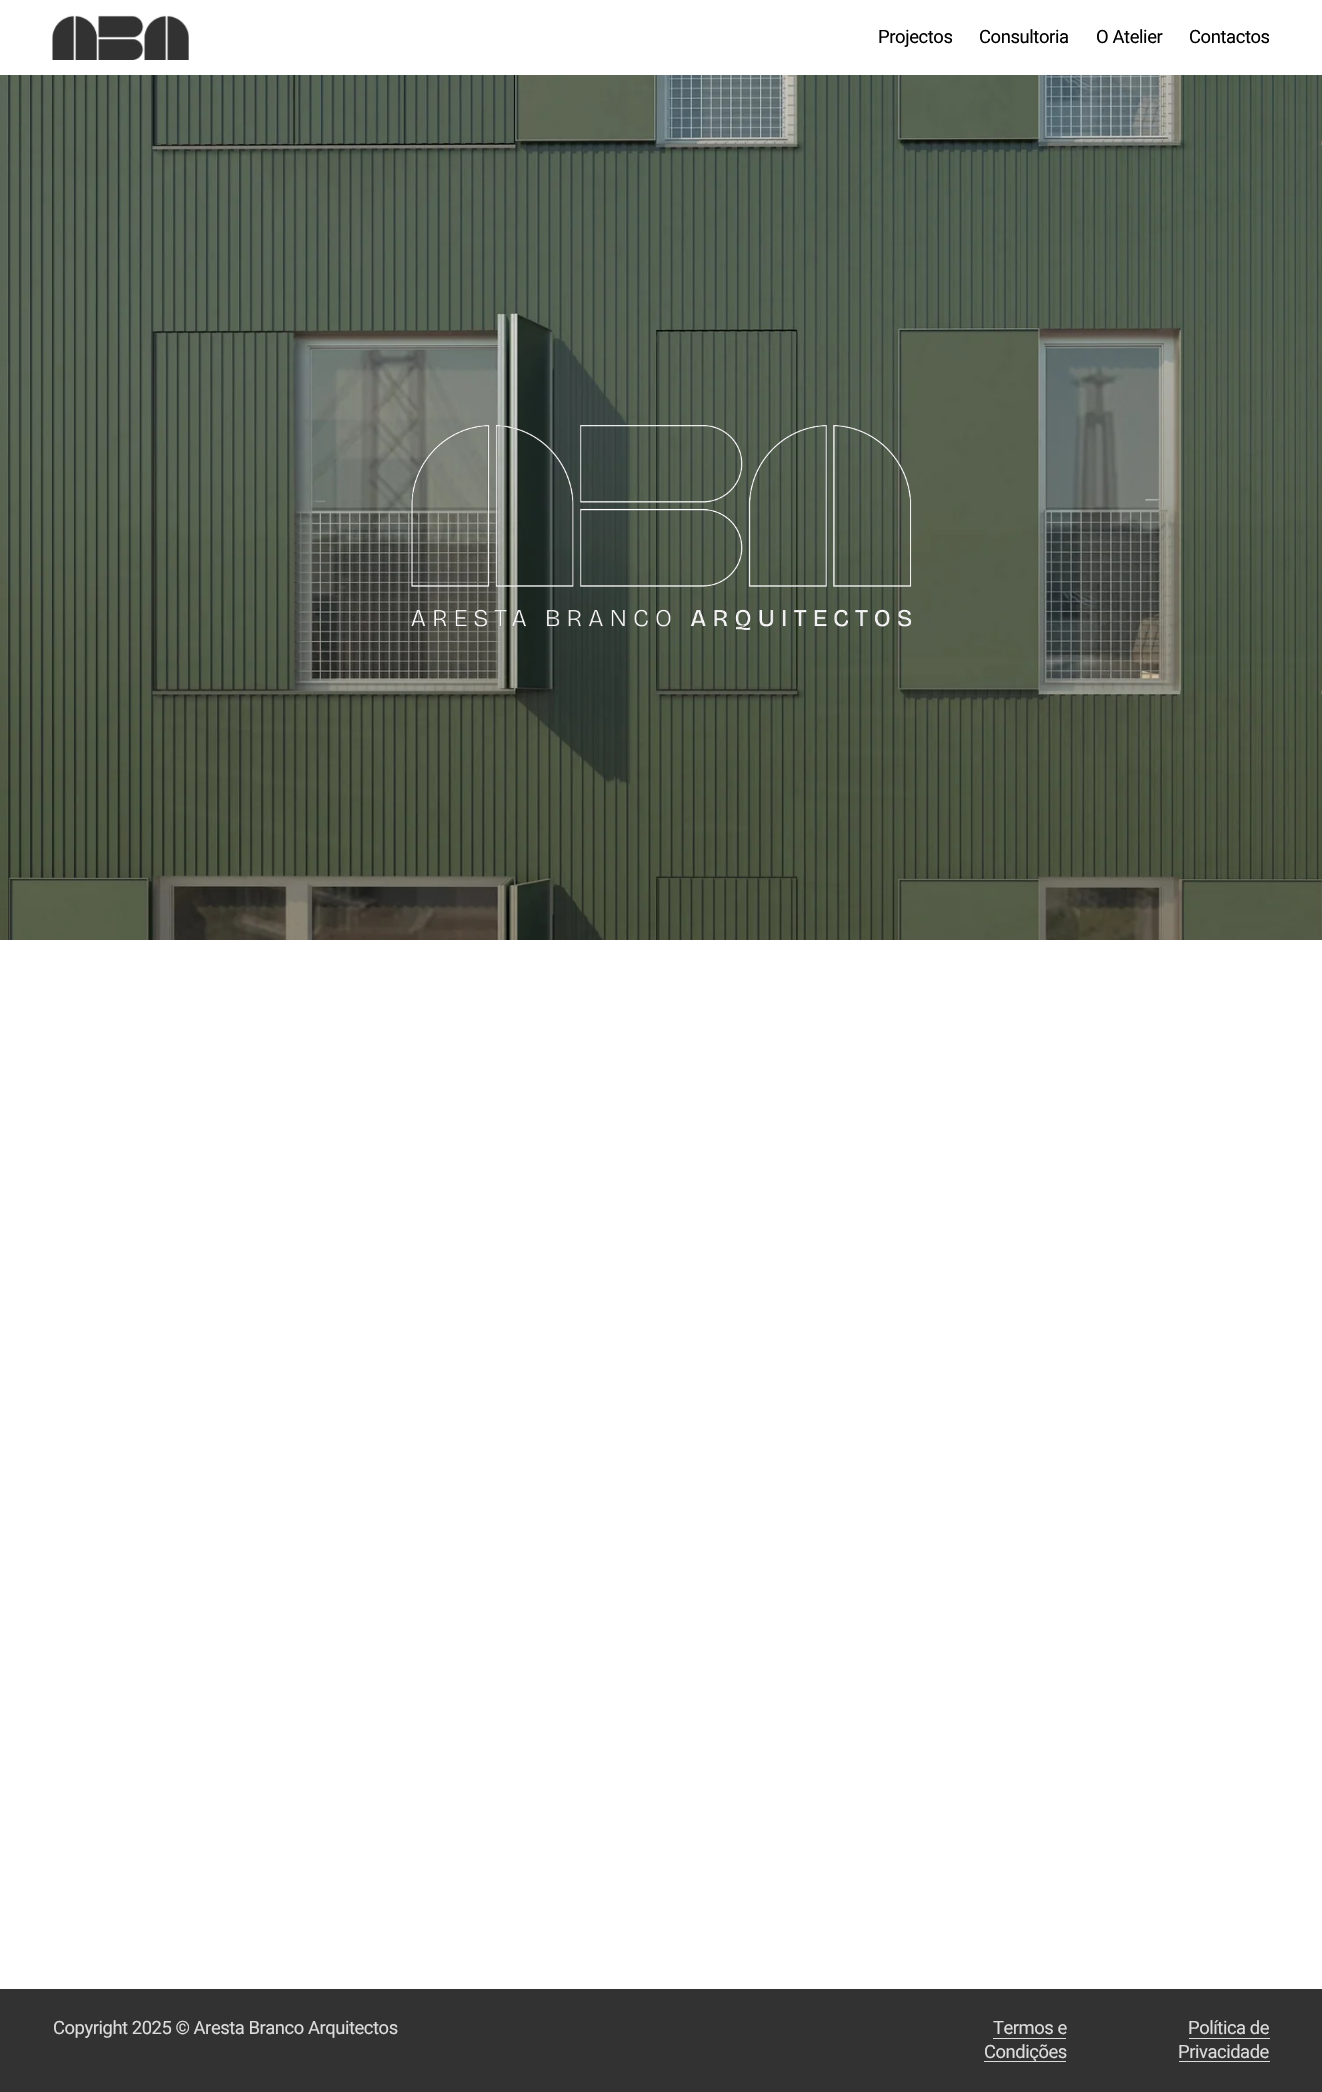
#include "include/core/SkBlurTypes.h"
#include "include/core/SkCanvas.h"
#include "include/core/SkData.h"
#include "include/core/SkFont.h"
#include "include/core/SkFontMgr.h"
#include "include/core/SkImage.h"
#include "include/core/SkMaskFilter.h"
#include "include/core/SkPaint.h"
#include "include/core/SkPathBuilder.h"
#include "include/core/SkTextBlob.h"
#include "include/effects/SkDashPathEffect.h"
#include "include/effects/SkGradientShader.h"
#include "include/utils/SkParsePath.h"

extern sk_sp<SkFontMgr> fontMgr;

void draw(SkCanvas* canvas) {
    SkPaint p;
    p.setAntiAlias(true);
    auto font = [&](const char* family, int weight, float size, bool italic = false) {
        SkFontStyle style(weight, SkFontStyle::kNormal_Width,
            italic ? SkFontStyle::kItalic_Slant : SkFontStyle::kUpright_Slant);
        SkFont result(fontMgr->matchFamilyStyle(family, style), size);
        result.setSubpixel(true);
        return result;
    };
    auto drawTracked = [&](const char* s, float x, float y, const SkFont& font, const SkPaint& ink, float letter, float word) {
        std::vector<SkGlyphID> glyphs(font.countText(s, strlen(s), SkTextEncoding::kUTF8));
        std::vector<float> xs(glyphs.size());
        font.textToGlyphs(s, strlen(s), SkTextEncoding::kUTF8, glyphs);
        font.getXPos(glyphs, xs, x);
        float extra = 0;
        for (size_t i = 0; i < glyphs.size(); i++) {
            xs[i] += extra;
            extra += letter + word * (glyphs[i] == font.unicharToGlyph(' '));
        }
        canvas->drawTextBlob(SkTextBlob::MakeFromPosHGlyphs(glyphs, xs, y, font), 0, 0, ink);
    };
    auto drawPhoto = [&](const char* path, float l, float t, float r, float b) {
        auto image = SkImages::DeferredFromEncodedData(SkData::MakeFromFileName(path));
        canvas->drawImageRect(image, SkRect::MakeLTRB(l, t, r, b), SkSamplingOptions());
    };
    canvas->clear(0xFFFFFFFF);
    drawPhoto("media/1.png", 52, 15, 189, 60);
    auto font1 = font("Roboto", 400, 18.4f);
    p.setColor(0xFF000000);
    {
        const struct { const char* s; float x, y; } items[] = {
            {"Projectos", 878, 43},
            {"Consultoria", 979, 43},
            {"O Atelier", 1096, 43},
            {"Contactos", 1189, 43},
        };
        for (auto [s, x, y] : items) {
            drawTracked(s, x, y, font1, p, -0.4f, 0);
        }
    }
    drawPhoto("media/2.png", 0, 75, 1322, 940);
    drawPhoto("media/3.png", 411, 425, 912, 630);
    p.setColor(0xFF323232);
    canvas->drawRect(SkRect::MakeLTRB(0, 1989, 1322, 2092), p);
    p.setColor(0xFFDCDCDC);
    drawTracked("Copyright 2025 © Aresta Branco Arquitectos", 53, 2034, font1, p, -0.45f, 0);
    drawTracked("Termos e", 993, 2034, font1, p, -0.45f, 0);
    canvas->drawRect(SkRect::MakeLTRB(993, 2038, 1066, 2039), p);
    canvas->drawRect(SkRect::MakeLTRB(984, 2061, 1066, 2062), p);
    drawTracked("Condições", 984, 2058, font1, p, -0.45f, 0);
    drawTracked("Política de", 1188, 2034, font1, p, -0.45f, 0);
    canvas->drawRect(SkRect::MakeLTRB(1189, 2038, 1270, 2039), p);
    drawTracked("Privacidade", 1178, 2058, font1, p, -0.45f, 0);
    canvas->drawRect(SkRect::MakeLTRB(1179, 2061, 1270, 2062), p);
}
